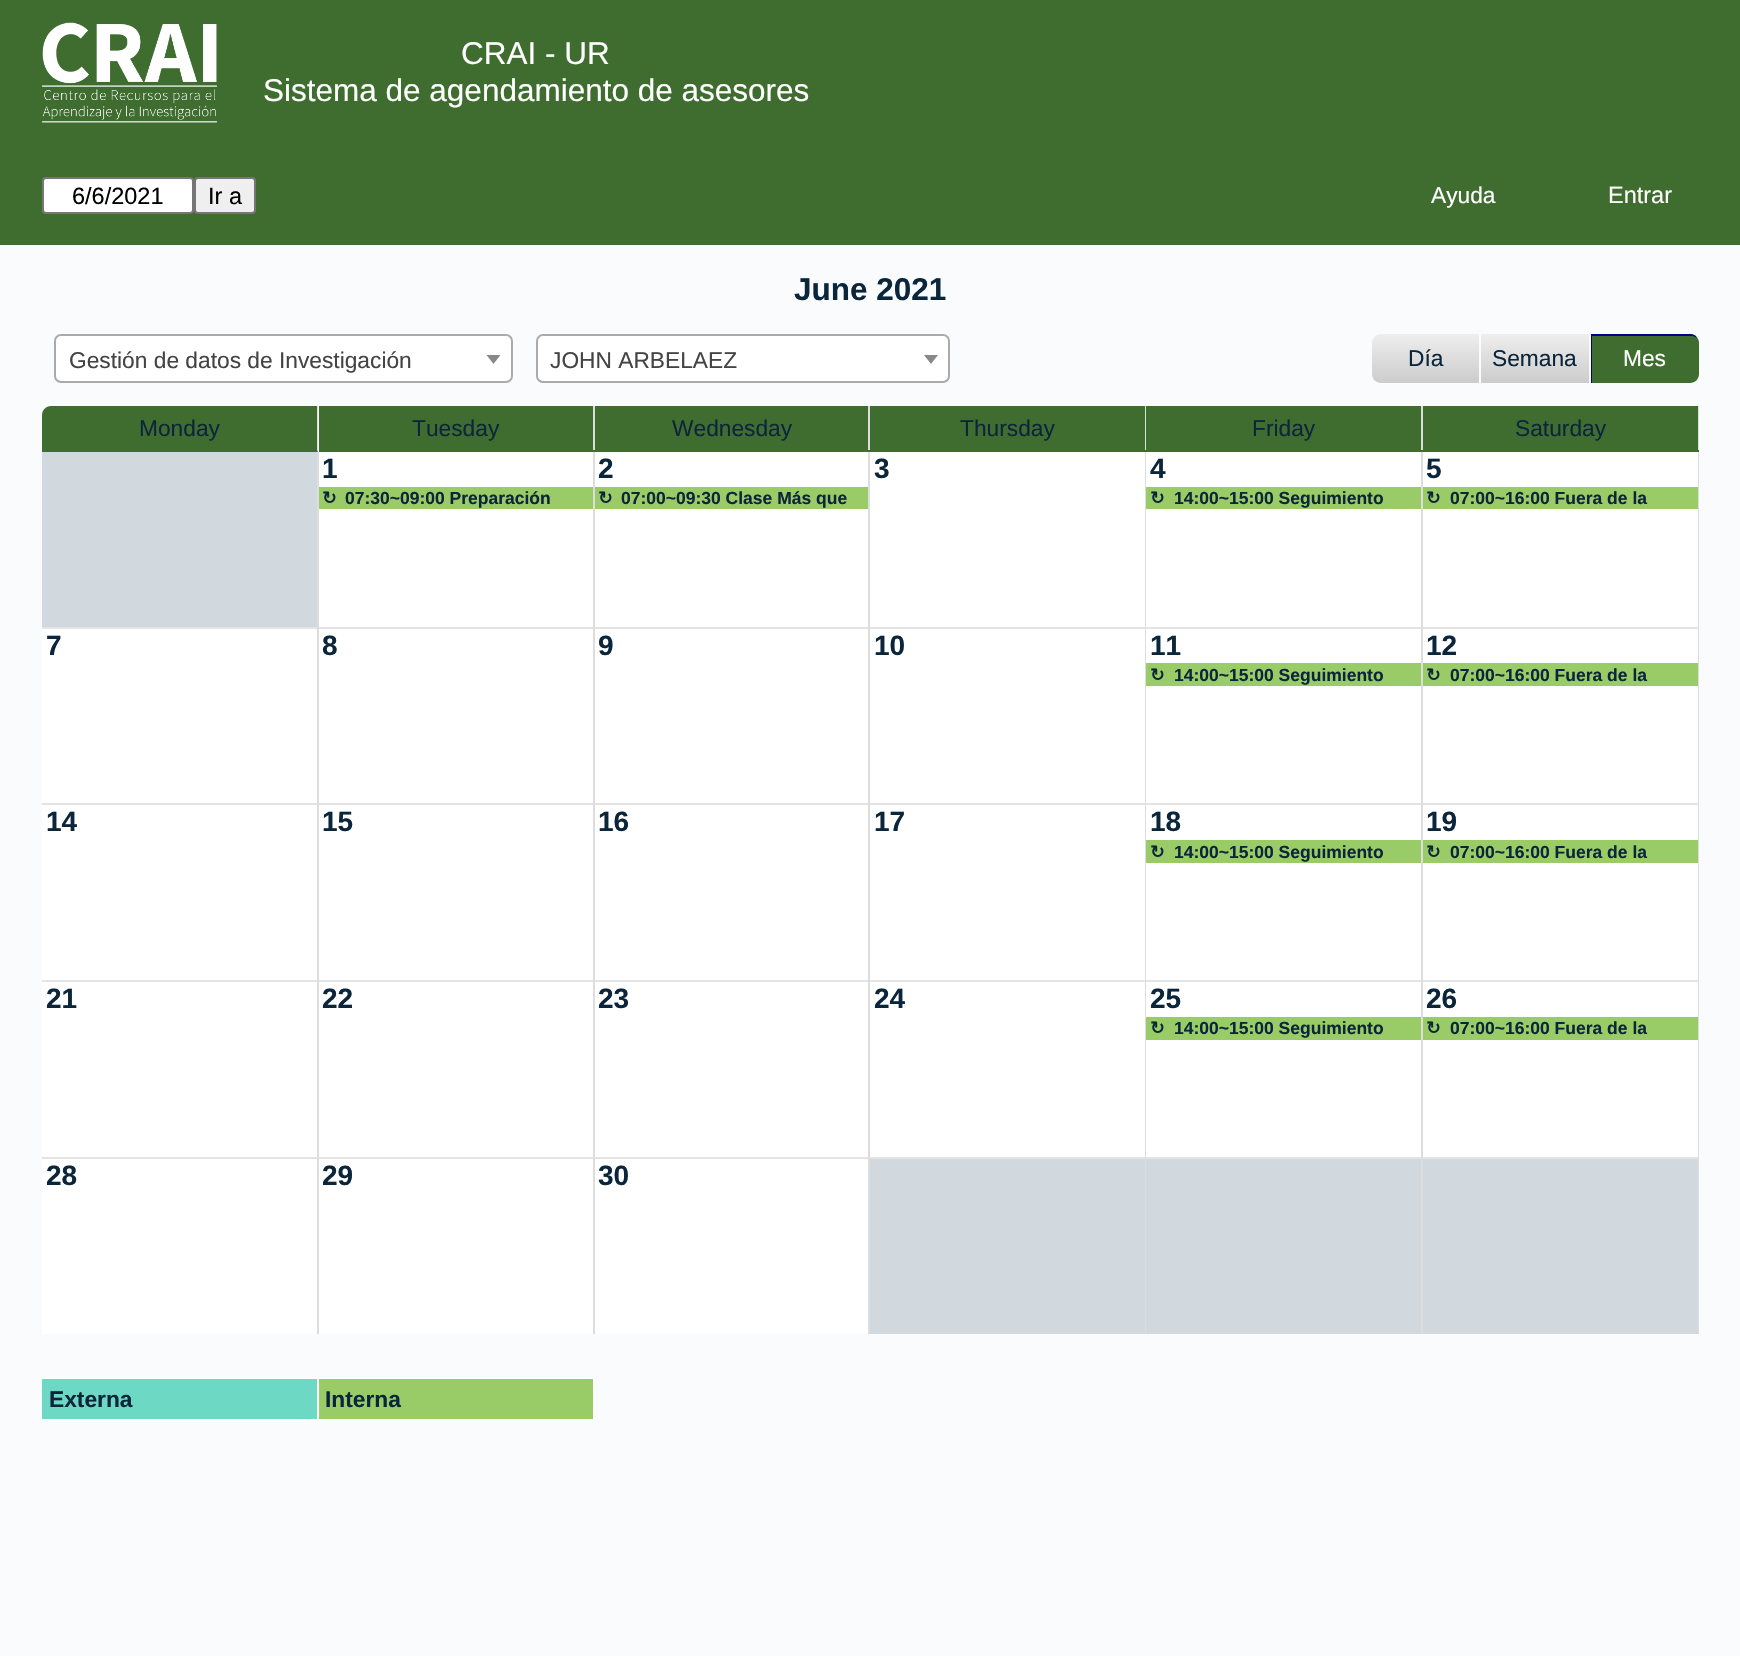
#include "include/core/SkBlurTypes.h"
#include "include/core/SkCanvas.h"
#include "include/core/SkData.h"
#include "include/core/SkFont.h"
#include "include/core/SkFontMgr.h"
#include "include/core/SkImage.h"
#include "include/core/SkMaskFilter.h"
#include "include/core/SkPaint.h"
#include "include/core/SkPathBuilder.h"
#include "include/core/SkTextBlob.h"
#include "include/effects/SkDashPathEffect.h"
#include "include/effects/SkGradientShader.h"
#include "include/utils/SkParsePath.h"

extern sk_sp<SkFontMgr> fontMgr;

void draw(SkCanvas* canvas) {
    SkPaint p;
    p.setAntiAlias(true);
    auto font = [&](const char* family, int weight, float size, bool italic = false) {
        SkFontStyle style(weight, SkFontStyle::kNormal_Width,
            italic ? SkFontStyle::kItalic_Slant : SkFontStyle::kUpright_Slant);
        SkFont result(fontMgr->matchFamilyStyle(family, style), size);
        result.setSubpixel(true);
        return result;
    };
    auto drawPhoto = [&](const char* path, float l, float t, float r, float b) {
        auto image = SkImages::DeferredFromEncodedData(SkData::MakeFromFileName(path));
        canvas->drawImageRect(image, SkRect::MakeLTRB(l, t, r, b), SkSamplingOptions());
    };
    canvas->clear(0xFFF9FBFC);
    p.setColor(0xFF3F6D30);
    canvas->drawRect(SkRect::MakeLTRB(0, 0, 1740, 245), p);
    drawPhoto("media/1.png", 42, 22, 217, 123);
    auto font1 = font("Liberation Sans", 400, 31.5f);
    p.setColor(0xFFFFFFFF);
    canvas->drawString("CRAI - UR", 461, 64, font1, p);
    canvas->drawString("Sistema de agendamiento de asesores", 263, 101, font1, p);
    canvas->drawRoundRect(SkRect::MakeLTRB(43, 178, 193, 213), 3, 3, p);
    p.setStyle(SkPaint::kStroke_Style);
    p.setStrokeWidth(2);
    p.setColor(0xFF767676);
    canvas->drawRoundRect(SkRect::MakeLTRB(43, 178, 193, 213), 3, 3, p);
    auto font2 = font("Liberation Sans", 400, 23.5f);
    p.setStyle(SkPaint::kFill_Style);
    p.setColor(0xFF000000);
    canvas->drawString("6/6/2021", 72, 204, font2, p);
    p.setColor(0xFFEFEFEF);
    canvas->drawRoundRect(SkRect::MakeLTRB(195, 178, 255, 213), 3, 3, p);
    p.setStyle(SkPaint::kStroke_Style);
    p.setColor(0xFF767676);
    canvas->drawRoundRect(SkRect::MakeLTRB(195, 178, 255, 213), 3, 3, p);
    p.setStyle(SkPaint::kFill_Style);
    p.setColor(0xFF000000);
    canvas->drawString("Ir a", 208, 204, font2, p);
    auto font3 = font("Liberation Sans", 400, 22.75f);
    p.setColor(0xFFFFFFFF);
    canvas->drawString("Ayuda", 1431, 203, font3, p);
    canvas->drawString("Entrar", 1608, 203, font2, p);
    auto font4 = font("Liberation Sans", 700, 31.5f);
    p.setColor(0xFF0B263B);
    canvas->drawString("June 2021", 794, 300, font4, p);
    p.setColor(0xFFFFFFFF);
    canvas->drawRoundRect(SkRect::MakeLTRB(55, 335, 512, 382), 6, 6, p);
    p.setStyle(SkPaint::kStroke_Style);
    p.setColor(0xFFAAAAAA);
    canvas->drawRoundRect(SkRect::MakeLTRB(55, 335, 512, 382), 6, 6, p);
    p.setStyle(SkPaint::kFill_Style);
    p.setColor(0xFF444444);
    canvas->drawString("Gestión de datos de Investigación", 69, 368, font3, p);
    p.setColor(0xFF888888);
    canvas->drawPath(SkPathBuilder().moveTo(486.5f, 355).lineTo(500.5f, 355).lineTo(493.5f, 364).close().detach(), p);
    p.setColor(0xFFFFFFFF);
    canvas->drawRoundRect(SkRect::MakeLTRB(537, 335, 949, 382), 6, 6, p);
    p.setStyle(SkPaint::kStroke_Style);
    p.setColor(0xFFAAAAAA);
    canvas->drawRoundRect(SkRect::MakeLTRB(537, 335, 949, 382), 6, 6, p);
    p.setStyle(SkPaint::kFill_Style);
    p.setColor(0xFF444444);
    canvas->drawString("JOHN ARBELAEZ", 550, 368, font3, p);
    p.setColor(0xFF888888);
    canvas->drawPath(SkPathBuilder().moveTo(924, 355).lineTo(938, 355).lineTo(931, 364).close().detach(), p);
    {
        const SkColor colors[] = {0xFFEEEEEE, 0xFFCCCCCC};
        const float stops[] = {0, 1};
        const SkPoint ends[] = {{1425, 334}, {1425, 383}};
        p.setShader(SkGradientShader::MakeLinear(ends, colors, stops, 2, SkTileMode::kClamp));
        p.setAlpha(255);
    }
    canvas->drawPath(SkPathBuilder().moveTo(1381, 334).lineTo(1481, 334).lineTo(1481, 383).lineTo(1381, 383).cubicTo(1376, 383, 1372, 379, 1372, 374).lineTo(1372, 343).cubicTo(1372, 338, 1376, 334, 1381, 334).close().detach(), p);
    p.setShader(nullptr);
    p.setColor(0xFFF9FBFC);
    canvas->drawRect(SkRect::MakeLTRB(1479, 334, 1481, 383), p);
    p.setColor(0xFF0B263B);
    canvas->drawString("Día", 1408, 366, font3, p);
    {
        const SkColor colors[] = {0xFFEEEEEE, 0xFFCCCCCC};
        const float stops[] = {0, 1};
        const SkPoint ends[] = {{1535, 334}, {1535, 383}};
        p.setShader(SkGradientShader::MakeLinear(ends, colors, stops, 2, SkTileMode::kClamp));
        p.setAlpha(255);
    }
    canvas->drawRect(SkRect::MakeLTRB(1481, 334, 1589, 383), p);
    p.setShader(nullptr);
    p.setColor(0xFF0B263B);
    canvas->drawString("Semana", 1492, 366, font3, p);
    p.setColor(0xFF3F6D30);
    canvas->drawPath(SkPathBuilder().moveTo(1591, 334).lineTo(1690, 334).cubicTo(1695, 334, 1699, 338, 1699, 343).lineTo(1699, 374).cubicTo(1699, 379, 1695, 383, 1690, 383).lineTo(1591, 383).close().detach(), p);
    p.setColor(0xFF00008B);
    canvas->drawPath(SkPathBuilder().moveTo(1592, 336).lineTo(1692, 336).cubicTo(1694, 336, 1696, 337, 1697, 338).cubicTo(1696, 335, 1693, 334, 1690, 334).lineTo(1591, 334).lineTo(1591, 383).lineTo(1592, 383).close().detach(), p);
    p.setColor(0xFFFFFFFF);
    canvas->drawString("Mes", 1623, 366, font3, p);
    p.setColor(0xFF3F6D30);
    canvas->drawPath(SkPathBuilder().moveTo(51, 406).lineTo(317, 406).lineTo(317, 450).lineTo(42, 450).lineTo(42, 415).cubicTo(42, 410, 46, 406, 51, 406).close().detach(), p);
    p.setColor(0xFFDDDDDD);
    canvas->drawPath(SkPathBuilder().moveTo(318, 406).lineTo(317, 406).lineTo(317, 450).lineTo(318, 451).close().detach(), p);
    p.setColor(0xFF3F6D30);
    canvas->drawPath(SkPathBuilder().moveTo(317, 450).lineTo(42, 450).lineTo(42, 452).lineTo(318, 452).close().detach(), p);
    p.setColor(0xFF0B263B);
    canvas->drawString("Monday", 139, 436, font3, p);
    {
        const struct { float l, t, r, b; SkColor color; } items[] = {
            {319, 406, 593, 450, 0xFF3F6D30},
            {593, 406, 595, 627, 0xFFDDDDDD},
            {868, 406, 870, 627, 0xFFDDDDDD},
            {1145, 406, 1146, 627, 0xFFDDDDDD},
            {1421, 406, 1423, 627, 0xFFDDDDDD},
            {1698, 406, 1699, 627, 0xFFDDDDDD},
            {319, 450, 1699, 452, 0xFF3F6D30},
        };
        for (auto [l, t, r, b, color] : items) {
            p.setColor(color);
            canvas->drawRect(SkRect::MakeLTRB(l, t, r, b), p);
        }
    }
    p.setColor(0xFF0B263B);
    canvas->drawString("Tuesday", 412, 436, font3, p);
    p.setColor(0xFF3F6D30);
    canvas->drawRect(SkRect::MakeLTRB(595, 406, 868, 450), p);
    p.setColor(0xFF0B263B);
    canvas->drawString("Wednesday", 672, 436, font3, p);
    p.setColor(0xFF3F6D30);
    canvas->drawRect(SkRect::MakeLTRB(870, 406, 1145, 450), p);
    p.setColor(0xFF0B263B);
    canvas->drawString("Thursday", 960, 436, font3, p);
    p.setColor(0xFF3F6D30);
    canvas->drawRect(SkRect::MakeLTRB(1146, 406, 1421, 450), p);
    p.setColor(0xFF0B263B);
    canvas->drawString("Friday", 1252, 436, font3, p);
    p.setColor(0xFF3F6D30);
    canvas->drawRect(SkRect::MakeLTRB(1423, 406, 1698, 450), p);
    p.setColor(0xFF0B263B);
    canvas->drawString("Saturday", 1515, 436, font3, p);
    {
        const struct { float l, t, r, b; SkColor color; } items[] = {
            {42, 452, 317, 627, 0xFFD1D9DE},
            {317, 452, 319, 627, 0xFFDDDDDD},
            {319, 452, 593, 627, 0xFFFFFFFF},
        };
        for (auto [l, t, r, b, color] : items) {
            p.setColor(color);
            canvas->drawRect(SkRect::MakeLTRB(l, t, r, b), p);
        }
    }
    auto font5 = font("Liberation Sans", 700, 28);
    p.setColor(0xFF0B263B);
    canvas->drawString("1", 322, 478, font5, p);
    p.setColor(0xFF99CC66);
    canvas->drawRect(SkRect::MakeLTRB(319, 487, 593, 509), p);
    auto font6 = font("DejaVu Sans", 700, 17.5f);
    p.setColor(0xFF0B263B);
    canvas->drawString("↻", 322, 504, font6, p);
    auto font7 = font("Liberation Sans", 700, 17.5f);
    canvas->drawString("07:30~09:00 Preparación", 345, 504, font7, p);
    p.setColor(0xFFFFFFFF);
    canvas->drawRect(SkRect::MakeLTRB(595, 452, 868, 627), p);
    p.setColor(0xFF0B263B);
    canvas->drawString("2", 598, 478, font5, p);
    p.setColor(0xFF99CC66);
    canvas->drawRect(SkRect::MakeLTRB(595, 487, 868, 509), p);
    p.setColor(0xFF0B263B);
    canvas->drawString("↻", 598, 504, font6, p);
    canvas->drawString("07:00~09:30 Clase Más que", 621, 504, font7, p);
    p.setColor(0xFFFFFFFF);
    canvas->drawRect(SkRect::MakeLTRB(870, 452, 1145, 627), p);
    p.setColor(0xFF0B263B);
    canvas->drawString("3", 874, 478, font5, p);
    p.setColor(0xFFFFFFFF);
    canvas->drawRect(SkRect::MakeLTRB(1146, 452, 1421, 627), p);
    p.setColor(0xFF0B263B);
    canvas->drawString("4", 1150, 478, font5, p);
    p.setColor(0xFF99CC66);
    canvas->drawRect(SkRect::MakeLTRB(1146, 487, 1421, 509), p);
    p.setColor(0xFF0B263B);
    canvas->drawString("↻", 1150, 504, font6, p);
    canvas->drawString("14:00~15:00 Seguimiento", 1174, 504, font7, p);
    p.setColor(0xFFFFFFFF);
    canvas->drawRect(SkRect::MakeLTRB(1423, 452, 1698, 627), p);
    p.setColor(0xFF0B263B);
    canvas->drawString("5", 1426, 478, font5, p);
    p.setColor(0xFF99CC66);
    canvas->drawRect(SkRect::MakeLTRB(1423, 487, 1698, 509), p);
    p.setColor(0xFF0B263B);
    canvas->drawString("↻", 1426, 504, font6, p);
    canvas->drawString("07:00~16:00 Fuera de la", 1450, 504, font7, p);
    {
        const struct { float l, t, r, b; SkColor color; } items[] = {
            {42, 629, 317, 803, 0xFFFFFFFF},
            {42, 627, 1699, 629, 0xFFE4E4E4},
            {317, 627, 319, 803, 0xFFDDDDDD},
        };
        for (auto [l, t, r, b, color] : items) {
            p.setColor(color);
            canvas->drawRect(SkRect::MakeLTRB(l, t, r, b), p);
        }
    }
    p.setColor(0xFF0B263B);
    canvas->drawString("7", 46, 655, font5, p);
    p.setColor(0xFFFFFFFF);
    canvas->drawRect(SkRect::MakeLTRB(319, 629, 593, 803), p);
    p.setColor(0xFFDDDDDD);
    canvas->drawRect(SkRect::MakeLTRB(593, 627, 595, 803), p);
    p.setColor(0xFF0B263B);
    canvas->drawString("8", 322, 655, font5, p);
    p.setColor(0xFFFFFFFF);
    canvas->drawRect(SkRect::MakeLTRB(595, 629, 868, 803), p);
    p.setColor(0xFFDDDDDD);
    canvas->drawRect(SkRect::MakeLTRB(868, 627, 870, 803), p);
    p.setColor(0xFF0B263B);
    canvas->drawString("9", 598, 655, font5, p);
    p.setColor(0xFFFFFFFF);
    canvas->drawRect(SkRect::MakeLTRB(870, 629, 1145, 803), p);
    p.setColor(0xFFDDDDDD);
    canvas->drawRect(SkRect::MakeLTRB(1145, 627, 1146, 803), p);
    p.setColor(0xFF0B263B);
    canvas->drawString("10", 874, 655, font5, p);
    p.setColor(0xFFFFFFFF);
    canvas->drawRect(SkRect::MakeLTRB(1146, 629, 1421, 803), p);
    p.setColor(0xFFDDDDDD);
    canvas->drawRect(SkRect::MakeLTRB(1421, 627, 1423, 803), p);
    p.setColor(0xFF0B263B);
    canvas->drawString("11", 1150, 655, font5, p);
    p.setColor(0xFF99CC66);
    canvas->drawRect(SkRect::MakeLTRB(1146, 663, 1421, 686), p);
    p.setColor(0xFF0B263B);
    canvas->drawString("↻", 1150, 681, font6, p);
    canvas->drawString("14:00~15:00 Seguimiento", 1174, 681, font7, p);
    p.setColor(0xFFFFFFFF);
    canvas->drawRect(SkRect::MakeLTRB(1423, 629, 1698, 803), p);
    p.setColor(0xFFDDDDDD);
    canvas->drawRect(SkRect::MakeLTRB(1698, 627, 1699, 803), p);
    p.setColor(0xFF0B263B);
    canvas->drawString("12", 1426, 655, font5, p);
    p.setColor(0xFF99CC66);
    canvas->drawRect(SkRect::MakeLTRB(1423, 663, 1698, 686), p);
    p.setColor(0xFF0B263B);
    canvas->drawString("↻", 1426, 681, font6, p);
    canvas->drawString("07:00~16:00 Fuera de la", 1450, 681, font7, p);
    {
        const struct { float l, t, r, b; SkColor color; } items[] = {
            {42, 805, 317, 980, 0xFFFFFFFF},
            {42, 803, 1699, 805, 0xFFE4E4E4},
            {317, 803, 319, 980, 0xFFDDDDDD},
        };
        for (auto [l, t, r, b, color] : items) {
            p.setColor(color);
            canvas->drawRect(SkRect::MakeLTRB(l, t, r, b), p);
        }
    }
    p.setColor(0xFF0B263B);
    canvas->drawString("14", 46, 831, font5, p);
    p.setColor(0xFFFFFFFF);
    canvas->drawRect(SkRect::MakeLTRB(319, 805, 593, 980), p);
    p.setColor(0xFFDDDDDD);
    canvas->drawRect(SkRect::MakeLTRB(593, 803, 595, 980), p);
    p.setColor(0xFF0B263B);
    canvas->drawString("15", 322, 831, font5, p);
    p.setColor(0xFFFFFFFF);
    canvas->drawRect(SkRect::MakeLTRB(595, 805, 868, 980), p);
    p.setColor(0xFFDDDDDD);
    canvas->drawRect(SkRect::MakeLTRB(868, 803, 870, 980), p);
    p.setColor(0xFF0B263B);
    canvas->drawString("16", 598, 831, font5, p);
    p.setColor(0xFFFFFFFF);
    canvas->drawRect(SkRect::MakeLTRB(870, 805, 1145, 980), p);
    p.setColor(0xFFDDDDDD);
    canvas->drawRect(SkRect::MakeLTRB(1145, 803, 1146, 980), p);
    p.setColor(0xFF0B263B);
    canvas->drawString("17", 874, 831, font5, p);
    p.setColor(0xFFFFFFFF);
    canvas->drawRect(SkRect::MakeLTRB(1146, 805, 1421, 980), p);
    p.setColor(0xFFDDDDDD);
    canvas->drawRect(SkRect::MakeLTRB(1421, 803, 1423, 980), p);
    p.setColor(0xFF0B263B);
    canvas->drawString("18", 1150, 831, font5, p);
    p.setColor(0xFF99CC66);
    canvas->drawRect(SkRect::MakeLTRB(1146, 840, 1421, 863), p);
    p.setColor(0xFF0B263B);
    canvas->drawString("↻", 1150, 858, font6, p);
    canvas->drawString("14:00~15:00 Seguimiento", 1174, 858, font7, p);
    p.setColor(0xFFFFFFFF);
    canvas->drawRect(SkRect::MakeLTRB(1423, 805, 1698, 980), p);
    p.setColor(0xFFDDDDDD);
    canvas->drawRect(SkRect::MakeLTRB(1698, 803, 1699, 980), p);
    p.setColor(0xFF0B263B);
    canvas->drawString("19", 1426, 831, font5, p);
    p.setColor(0xFF99CC66);
    canvas->drawRect(SkRect::MakeLTRB(1423, 840, 1698, 863), p);
    p.setColor(0xFF0B263B);
    canvas->drawString("↻", 1426, 858, font6, p);
    canvas->drawString("07:00~16:00 Fuera de la", 1450, 858, font7, p);
    {
        const struct { float l, t, r, b; SkColor color; } items[] = {
            {42, 982, 317, 1157, 0xFFFFFFFF},
            {42, 980, 1699, 982, 0xFFE4E4E4},
            {317, 980, 319, 1157, 0xFFDDDDDD},
        };
        for (auto [l, t, r, b, color] : items) {
            p.setColor(color);
            canvas->drawRect(SkRect::MakeLTRB(l, t, r, b), p);
        }
    }
    p.setColor(0xFF0B263B);
    canvas->drawString("21", 46, 1008, font5, p);
    p.setColor(0xFFFFFFFF);
    canvas->drawRect(SkRect::MakeLTRB(319, 982, 593, 1157), p);
    p.setColor(0xFFDDDDDD);
    canvas->drawRect(SkRect::MakeLTRB(593, 980, 595, 1157), p);
    p.setColor(0xFF0B263B);
    canvas->drawString("22", 322, 1008, font5, p);
    p.setColor(0xFFFFFFFF);
    canvas->drawRect(SkRect::MakeLTRB(595, 982, 868, 1157), p);
    p.setColor(0xFFDDDDDD);
    canvas->drawRect(SkRect::MakeLTRB(868, 980, 870, 1157), p);
    p.setColor(0xFF0B263B);
    canvas->drawString("23", 598, 1008, font5, p);
    p.setColor(0xFFFFFFFF);
    canvas->drawRect(SkRect::MakeLTRB(870, 982, 1145, 1157), p);
    p.setColor(0xFFDDDDDD);
    canvas->drawRect(SkRect::MakeLTRB(1145, 980, 1146, 1157), p);
    p.setColor(0xFF0B263B);
    canvas->drawString("24", 874, 1008, font5, p);
    p.setColor(0xFFFFFFFF);
    canvas->drawRect(SkRect::MakeLTRB(1146, 982, 1421, 1157), p);
    p.setColor(0xFFDDDDDD);
    canvas->drawRect(SkRect::MakeLTRB(1421, 980, 1423, 1157), p);
    p.setColor(0xFF0B263B);
    canvas->drawString("25", 1150, 1008, font5, p);
    p.setColor(0xFF99CC66);
    canvas->drawRect(SkRect::MakeLTRB(1146, 1017, 1421, 1040), p);
    p.setColor(0xFF0B263B);
    canvas->drawString("↻", 1150, 1034, font6, p);
    canvas->drawString("14:00~15:00 Seguimiento", 1174, 1034, font7, p);
    p.setColor(0xFFFFFFFF);
    canvas->drawRect(SkRect::MakeLTRB(1423, 982, 1698, 1157), p);
    p.setColor(0xFFDDDDDD);
    canvas->drawRect(SkRect::MakeLTRB(1698, 980, 1699, 1157), p);
    p.setColor(0xFF0B263B);
    canvas->drawString("26", 1426, 1008, font5, p);
    p.setColor(0xFF99CC66);
    canvas->drawRect(SkRect::MakeLTRB(1423, 1017, 1698, 1040), p);
    p.setColor(0xFF0B263B);
    canvas->drawString("↻", 1426, 1034, font6, p);
    canvas->drawString("07:00~16:00 Fuera de la", 1450, 1034, font7, p);
    {
        const struct { float l, t, r, b; SkColor color; } items[] = {
            {42, 1159, 317, 1334, 0xFFFFFFFF},
            {42, 1157, 1699, 1159, 0xFFE4E4E4},
            {317, 1157, 319, 1334, 0xFFDDDDDD},
        };
        for (auto [l, t, r, b, color] : items) {
            p.setColor(color);
            canvas->drawRect(SkRect::MakeLTRB(l, t, r, b), p);
        }
    }
    p.setColor(0xFF0B263B);
    canvas->drawString("28", 46, 1185, font5, p);
    p.setColor(0xFFFFFFFF);
    canvas->drawRect(SkRect::MakeLTRB(319, 1159, 593, 1334), p);
    p.setColor(0xFFDDDDDD);
    canvas->drawRect(SkRect::MakeLTRB(593, 1157, 595, 1334), p);
    p.setColor(0xFF0B263B);
    canvas->drawString("29", 322, 1185, font5, p);
    p.setColor(0xFFFFFFFF);
    canvas->drawRect(SkRect::MakeLTRB(595, 1159, 868, 1334), p);
    p.setColor(0xFFDDDDDD);
    canvas->drawRect(SkRect::MakeLTRB(868, 1157, 870, 1334), p);
    p.setColor(0xFF0B263B);
    canvas->drawString("30", 598, 1185, font5, p);
    {
        const struct { float l, t, r, b; SkColor color; } items[] = {
            {870, 1159, 1145, 1334, 0xFFD1D9DE},
            {1145, 1157, 1146, 1334, 0xFFDDDDDD},
            {1146, 1159, 1421, 1334, 0xFFD1D9DE},
            {1421, 1157, 1423, 1334, 0xFFDDDDDD},
            {1423, 1159, 1698, 1334, 0xFFD1D9DE},
            {1698, 1157, 1699, 1334, 0xFFDDDDDD},
            {42, 1379, 317, 1419, 0xFF6DD9C4},
        };
        for (auto [l, t, r, b, color] : items) {
            p.setColor(color);
            canvas->drawRect(SkRect::MakeLTRB(l, t, r, b), p);
        }
    }
    canvas->save();
    canvas->clipRect(SkRect::MakeLTRB(42, 245, 1699, 1421));
    p.setStyle(SkPaint::kStroke_Style);
    p.setColor(0xFFFFFFFF);
    canvas->drawRect(SkRect::MakeLTRB(41, 1378, 318, 1420), p);
    canvas->restore();
    auto font8 = font("Liberation Sans", 700, 22.75f);
    p.setStyle(SkPaint::kFill_Style);
    p.setColor(0xFF0B263B);
    canvas->drawString("Externa", 49, 1407, font8, p);
    p.setColor(0xFF99CC66);
    canvas->drawRect(SkRect::MakeLTRB(318, 1378, 594, 1420), p);
    p.setStyle(SkPaint::kStroke_Style);
    p.setColor(0xFFFFFFFF);
    canvas->drawRect(SkRect::MakeLTRB(318, 1378, 594, 1420), p);
    p.setStyle(SkPaint::kFill_Style);
    p.setColor(0xFF0B263B);
    canvas->drawString("Interna", 325, 1407, font8, p);
}
